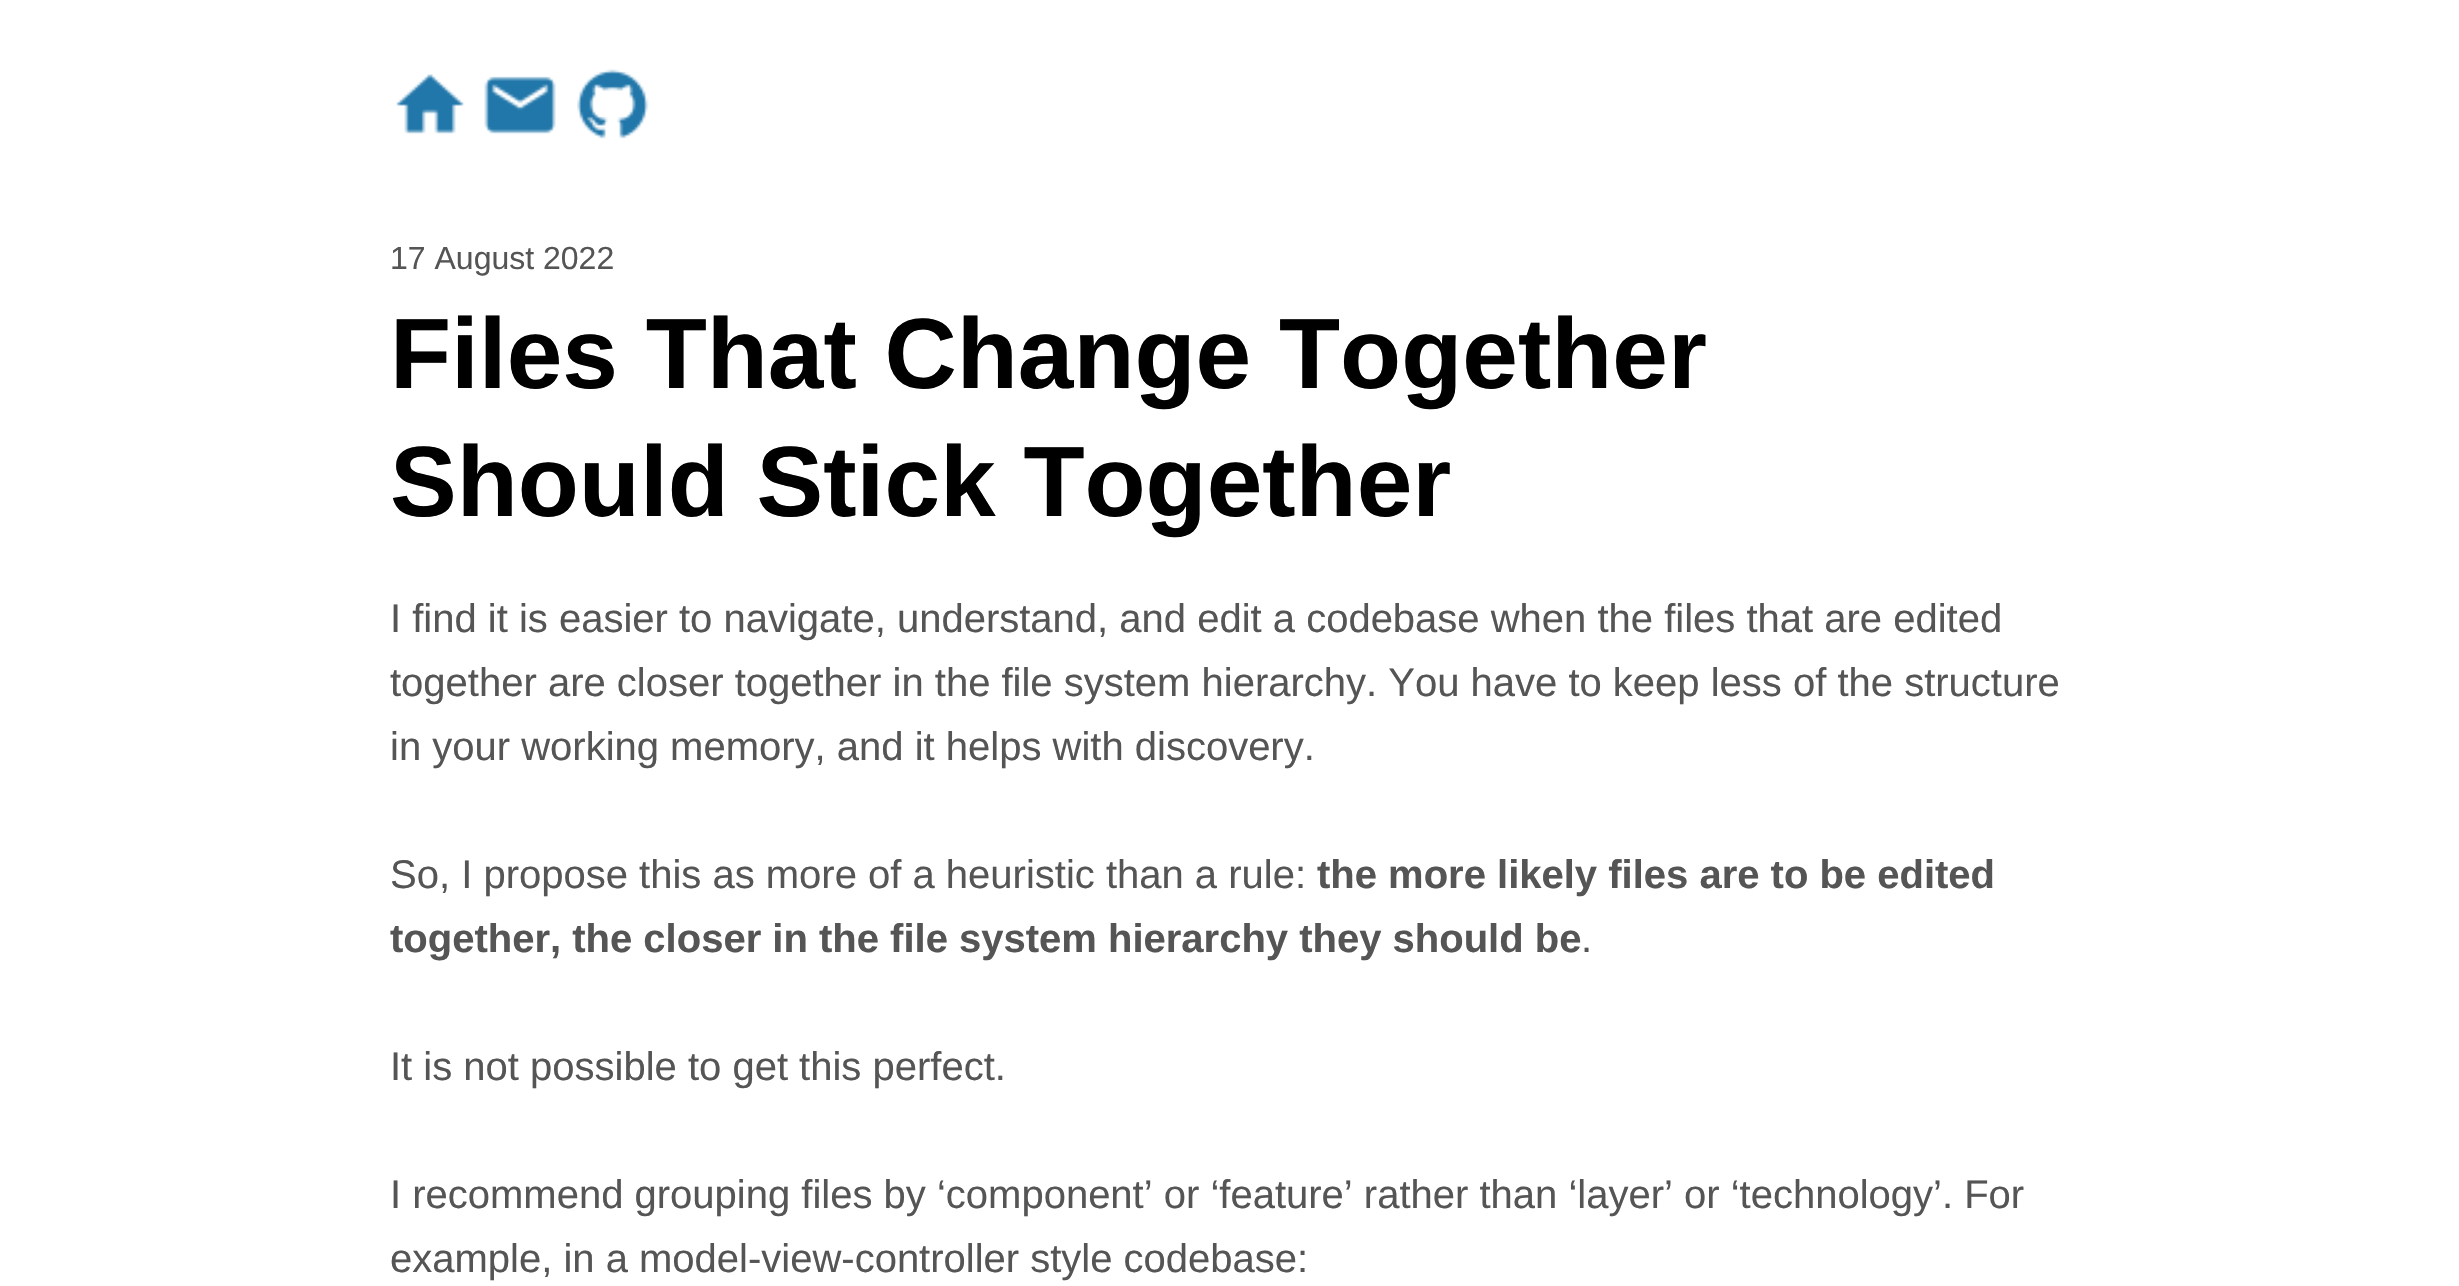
#include "include/core/SkBlurTypes.h"
#include "include/core/SkCanvas.h"
#include "include/core/SkData.h"
#include "include/core/SkFont.h"
#include "include/core/SkFontMgr.h"
#include "include/core/SkImage.h"
#include "include/core/SkMaskFilter.h"
#include "include/core/SkPaint.h"
#include "include/core/SkPathBuilder.h"
#include "include/core/SkTextBlob.h"
#include "include/effects/SkDashPathEffect.h"
#include "include/effects/SkGradientShader.h"
#include "include/utils/SkParsePath.h"

extern sk_sp<SkFontMgr> fontMgr;

void draw(SkCanvas* canvas) {
    SkPaint p;
    p.setAntiAlias(true);
    auto font = [&](const char* family, int weight, float size, bool italic = false) {
        SkFontStyle style(weight, SkFontStyle::kNormal_Width,
            italic ? SkFontStyle::kItalic_Slant : SkFontStyle::kUpright_Slant);
        SkFont result(fontMgr->matchFamilyStyle(family, style), size);
        result.setSubpixel(true);
        return result;
    };
    auto drawPhoto = [&](const char* path, float l, float t, float r, float b) {
        auto image = SkImages::DeferredFromEncodedData(SkData::MakeFromFileName(path));
        canvas->drawImageRect(image, SkRect::MakeLTRB(l, t, r, b), SkSamplingOptions());
    };
    canvas->clear(0xFFFFFFFF);
    drawPhoto("media/1.png", 395, 74, 465, 134);
    drawPhoto("media/2.png", 484, 76, 556, 134);
    drawPhoto("media/3.png", 577, 69, 649, 139);
    auto font1 = font("Liberation Sans", 400, 32);
    p.setColor(0xFF555555);
    canvas->drawString("17 August 2022", 390, 269, font1, p);
    auto font2 = font("Liberation Sans", 700, 100);
    p.setColor(0xFF000000);
    canvas->drawString("Files That Change Together", 390, 388, font2, p);
    canvas->drawString("Should Stick Together", 390, 516, font2, p);
    auto font3 = font("Liberation Sans", 400, 40);
    p.setColor(0xFF555555);
    {
        const struct { const char* s; float x, y; } items[] = {
            {"I find it is easier to navigate, understand, and edit a codebase when the files that are edited", 390, 632},
            {"together are closer together in the file system hierarchy. You have to keep less of the structure", 390, 696},
            {"in your working memory, and it helps with discovery.", 390, 760},
            {"So, I propose this as more of a heuristic than a rule:", 390, 888},
        };
        for (auto [s, x, y] : items) {
            canvas->drawString(s, x, y, font3, p);
        }
    }
    auto font4 = font("Liberation Sans", 700, 40);
    canvas->drawString("the more likely files are to be edited", 1317, 888, font4, p);
    canvas->drawString("together, the closer in the file system hierarchy they should be", 390, 952, font4, p);
    {
        const struct { const char* s; float x, y; } items[] = {
            {".", 1581, 952},
            {"It is not possible to get this perfect.", 390, 1080},
            {"I recommend grouping files by ‘component’ or ‘feature’ rather than ‘layer’ or ‘technology’. For", 390, 1208},
            {"example, in a model-view-controller style codebase:", 390, 1272},
        };
        for (auto [s, x, y] : items) {
            canvas->drawString(s, x, y, font3, p);
        }
    }
}
